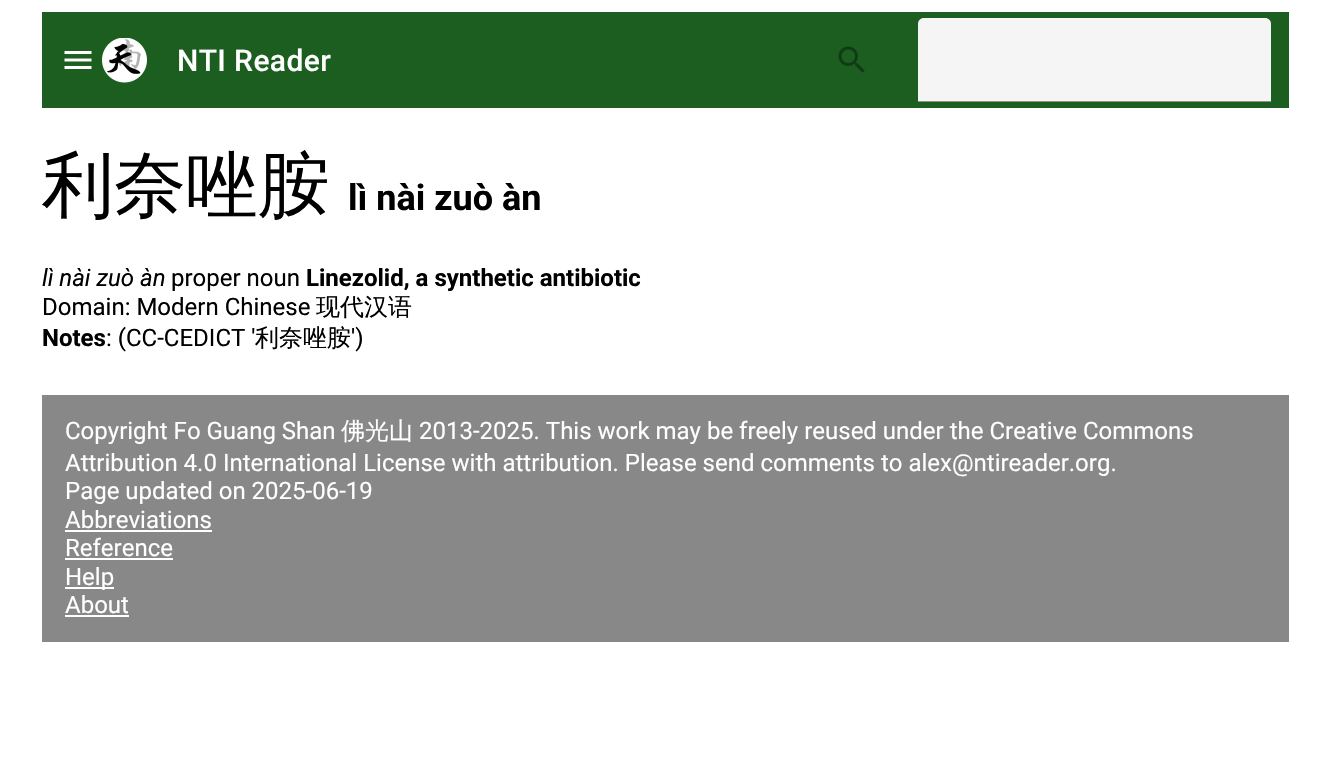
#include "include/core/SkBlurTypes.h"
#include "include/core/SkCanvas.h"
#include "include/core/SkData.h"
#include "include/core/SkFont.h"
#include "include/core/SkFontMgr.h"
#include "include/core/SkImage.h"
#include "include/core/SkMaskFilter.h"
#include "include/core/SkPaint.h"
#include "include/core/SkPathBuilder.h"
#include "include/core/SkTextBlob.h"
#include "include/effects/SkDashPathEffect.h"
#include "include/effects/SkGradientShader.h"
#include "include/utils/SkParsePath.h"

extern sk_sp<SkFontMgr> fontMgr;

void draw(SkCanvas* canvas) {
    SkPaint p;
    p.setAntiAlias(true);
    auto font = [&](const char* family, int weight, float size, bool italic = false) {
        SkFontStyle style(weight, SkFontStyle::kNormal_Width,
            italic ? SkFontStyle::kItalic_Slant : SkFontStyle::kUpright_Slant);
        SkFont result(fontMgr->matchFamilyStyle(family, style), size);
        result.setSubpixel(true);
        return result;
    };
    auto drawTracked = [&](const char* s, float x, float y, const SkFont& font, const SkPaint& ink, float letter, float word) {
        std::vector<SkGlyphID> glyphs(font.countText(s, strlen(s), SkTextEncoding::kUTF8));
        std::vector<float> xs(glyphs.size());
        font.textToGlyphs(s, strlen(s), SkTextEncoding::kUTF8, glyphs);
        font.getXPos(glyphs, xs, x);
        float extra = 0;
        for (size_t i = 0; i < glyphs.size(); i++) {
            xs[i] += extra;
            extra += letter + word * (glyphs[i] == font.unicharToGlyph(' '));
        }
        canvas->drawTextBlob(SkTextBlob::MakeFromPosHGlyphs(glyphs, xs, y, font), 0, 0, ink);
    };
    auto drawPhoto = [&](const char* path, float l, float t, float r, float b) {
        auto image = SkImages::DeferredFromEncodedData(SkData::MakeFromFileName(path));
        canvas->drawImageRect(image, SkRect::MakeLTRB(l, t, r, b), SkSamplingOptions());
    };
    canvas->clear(0xFFFFFFFF);
    p.setColor(0xFF1B5E20);
    canvas->drawRect(SkRect::MakeLTRB(42, 12, 1289, 108), p);
    drawPhoto("media/1.png", 64, 51, 92, 69);
    drawPhoto("media/2.png", 102, 38, 147, 83);
    auto font1 = font("Roboto", 500, 30);
    p.setColor(0xFFFFFFFF);
    drawTracked("NTI Reader", 177, 71, font1, p, 0.4f, 0);
    drawPhoto("media/3.png", 838, 46, 865, 73);
    p.setColor(0xFFF5F5F5);
    canvas->drawPath(SkPathBuilder().moveTo(924, 18).lineTo(1265, 18).cubicTo(1268.5f, 18, 1271, 20.5f, 1271, 24).lineTo(1271, 102).lineTo(918, 102).lineTo(918, 24).cubicTo(918, 20.5f, 920.5f, 18, 924, 18).close().detach(), p);
    p.setColor(0xFF8E8E8E);
    canvas->drawRect(SkRect::MakeLTRB(918, 101, 1271, 102), p);
    auto font2 = font("WenQuanYi Zen Hei", 500, 72);
    p.setColor(0xFF000000);
    canvas->drawString("利奈唑胺", 42, 210, font2, p);
    auto font3 = font("Roboto", 700, 36);
    canvas->drawString("lì nài zuò àn", 348, 210, font3, p);
    auto font4 = font("Roboto", 400, 24, true);
    canvas->drawString("lì nài zuò àn", 42, 286, font4, p);
    auto font5 = font("Roboto", 400, 24);
    canvas->drawString("proper noun", 171, 286, font5, p);
    auto font6 = font("Roboto", 700, 24);
    canvas->drawString("Linezolid, a synthetic antibiotic", 306, 286, font6, p);
    canvas->drawString("Domain: Modern Chinese", 42, 315, font5, p);
    auto font7 = font("WenQuanYi Zen Hei", 500, 24);
    canvas->drawString("现代汉语", 316, 315, font7, p);
    canvas->drawString("Notes", 42, 346, font6, p);
    canvas->drawString(": (CC-CEDICT '", 106, 346, font5, p);
    canvas->drawString("利奈唑胺", 255, 346, font7, p);
    canvas->drawString("')", 351, 346, font5, p);
    p.setColor(0xFF888888);
    canvas->drawRect(SkRect::MakeLTRB(42, 395, 1289, 642), p);
    p.setColor(0xFFFFFFFF);
    canvas->drawString("Copyright Fo Guang Shan", 65, 439, font5, p);
    canvas->drawString("佛光山", 341, 439, font7, p);
    {
        const struct { const char* s; float x, y; } items[] = {
            {"2013-2025. This work may be freely reused under the Creative Commons", 419, 439},
            {"Attribution 4.0 International License with attribution. Please send comments to alex@ntireader.org.", 65, 471},
            {"Page updated on 2025-06-19", 65, 499},
            {"Abbreviations", 65, 528},
        };
        for (auto [s, x, y] : items) {
            canvas->drawString(s, x, y, font5, p);
        }
    }
    canvas->drawRect(SkRect::MakeLTRB(65, 530, 212, 532), p);
    canvas->drawString("Reference", 65, 556, font5, p);
    canvas->drawRect(SkRect::MakeLTRB(65, 558, 173, 560), p);
    canvas->drawRect(SkRect::MakeLTRB(65, 587, 114, 589), p);
    canvas->drawString("Help", 65, 585, font5, p);
    canvas->drawString("About", 65, 613, font5, p);
    canvas->drawRect(SkRect::MakeLTRB(65, 615, 129, 617), p);
}
